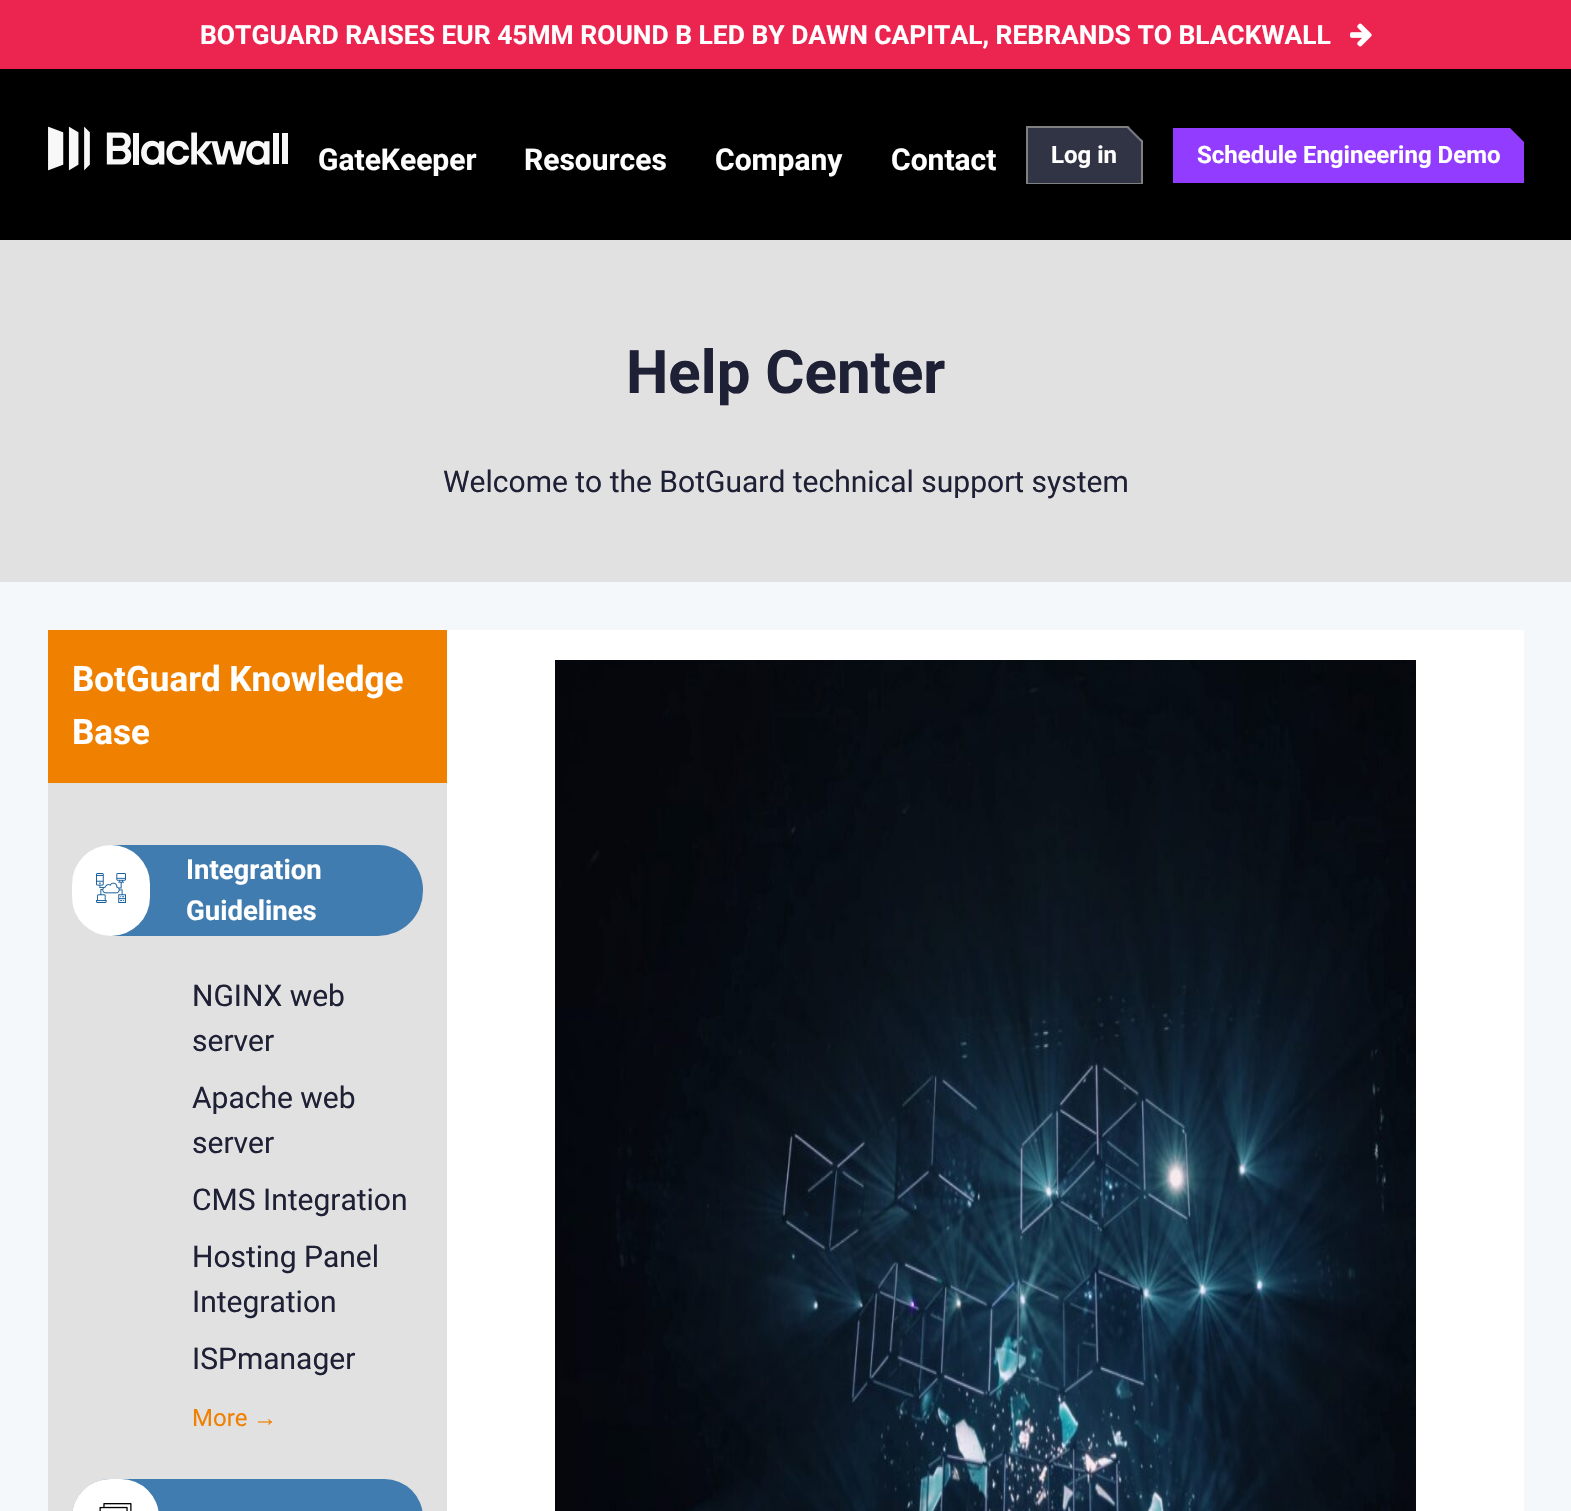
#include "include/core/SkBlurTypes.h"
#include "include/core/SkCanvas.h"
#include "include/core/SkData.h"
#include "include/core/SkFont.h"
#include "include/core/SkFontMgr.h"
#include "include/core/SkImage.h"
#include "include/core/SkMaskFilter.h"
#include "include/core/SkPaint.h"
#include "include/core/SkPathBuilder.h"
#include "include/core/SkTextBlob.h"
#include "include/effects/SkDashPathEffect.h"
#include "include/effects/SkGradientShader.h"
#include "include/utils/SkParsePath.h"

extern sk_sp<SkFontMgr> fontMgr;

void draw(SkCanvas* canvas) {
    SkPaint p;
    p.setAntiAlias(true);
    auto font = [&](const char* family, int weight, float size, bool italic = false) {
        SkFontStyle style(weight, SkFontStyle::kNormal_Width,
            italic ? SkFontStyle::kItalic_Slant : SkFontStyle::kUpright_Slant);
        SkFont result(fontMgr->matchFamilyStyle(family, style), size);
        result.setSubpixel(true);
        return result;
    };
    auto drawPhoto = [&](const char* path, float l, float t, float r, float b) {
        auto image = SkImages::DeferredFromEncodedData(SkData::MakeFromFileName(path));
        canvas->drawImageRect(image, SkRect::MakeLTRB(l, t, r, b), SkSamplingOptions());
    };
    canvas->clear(0xFFEB2450);
    auto font1 = font("Roboto", 700, 26.4f);
    p.setColor(0xFFFFFFFF);
    canvas->drawString("BOTGUARD RAISES EUR 45MM ROUND B LED BY DAWN CAPITAL, REBRANDS TO BLACKWALL", 200, 44, font1, p);
    drawPhoto("media/1.png", 1350, 23, 1372, 47);
    p.setColor(0xFF000000);
    canvas->drawRect(SkRect::MakeLTRB(0, 69, 1571, 240), p);
    drawPhoto("media/2.png", 48, 126, 288, 171);
    auto font2 = font("Roboto", 700, 30);
    p.setColor(0xFFFFFFFF);
    {
        const struct { const char* s; float x, y; } items[] = {
            {"GateKeeper", 318, 170},
            {"Resources", 524, 170},
            {"Company", 715, 170},
            {"Contact", 891, 170},
        };
        for (auto [s, x, y] : items) {
            canvas->drawString(s, x, y, font2, p);
        }
    }
    p.setColor(0xFF767883);
    canvas->drawPath(SkPathBuilder().moveTo(1026, 126).lineTo(1026, 184).lineTo(1143, 184).lineTo(1143, 141).lineTo(1128, 126).close().detach(), p);
    p.setColor(0xFF808080);
    canvas->drawPath(SkPathBuilder().moveTo(1026, 126).lineTo(1026, 184).lineTo(1143, 184).lineTo(1143, 141).lineTo(1141, 139).lineTo(1141, 183).lineTo(1028, 183).lineTo(1028, 128).lineTo(1130, 128).lineTo(1128, 126).close().detach(), p);
    p.setColor(0xFF313445);
    canvas->drawPath(SkPathBuilder().moveTo(1028, 128).lineTo(1127, 128).lineTo(1141, 142).lineTo(1141, 183).lineTo(1028, 183).close().detach(), p);
    auto font3 = font("Roboto", 700, 24);
    p.setColor(0xFFFFFFFF);
    canvas->drawString("Log in", 1051, 163, font3, p);
    p.setColor(0xFF923CFF);
    canvas->drawPath(SkPathBuilder().moveTo(1173, 128).lineTo(1173, 183).lineTo(1524, 183).lineTo(1524, 142).lineTo(1510, 128).close().detach(), p);
    p.setColor(0xFFFFFFFF);
    canvas->drawString("Schedule Engineering Demo", 1197, 163, font3, p);
    p.setColor(0xFFE2E1E1);
    canvas->drawRect(SkRect::MakeLTRB(0, 240, 1571, 582), p);
    auto font4 = font("Roboto", 700, 60);
    p.setColor(0xFF1E2035);
    canvas->drawString("Help Center", 626, 393, font4, p);
    auto font5 = font("Roboto", 400, 30);
    canvas->drawString("Welcome to the BotGuard technical support system", 443, 492, font5, p);
    p.setColor(0xFFF5F8FB);
    canvas->drawRect(SkRect::MakeLTRB(0, 582, 1571, 1511), p);
    p.setColor(0xFFF08000);
    canvas->drawRect(SkRect::MakeLTRB(48, 630, 447, 783), p);
    auto font6 = font("Roboto", 700, 35);
    p.setColor(0xFFFFFFFF);
    canvas->drawString("BotGuard Knowledge", 72, 691, font6, p);
    canvas->drawString("Base", 72, 744, font6, p);
    canvas->drawRect(SkRect::MakeLTRB(447, 630, 1524, 1511), p);
    drawPhoto("media/3.png", 555, 660, 1416, 1511);
    p.setColor(0xFFE2E1E1);
    canvas->drawRect(SkRect::MakeLTRB(48, 783, 447, 1511), p);
    p.setColor(0xFF407CAF);
    canvas->drawRoundRect(SkRect::MakeLTRB(72, 845, 423, 936), 45, 45, p);
    p.setColor(0xFFFFFFFF);
    canvas->drawRoundRect(SkRect::MakeLTRB(72, 845, 150, 936), 39, 39, p);
    drawPhoto("media/4.png", 96, 873, 126, 903);
    auto font7 = font("Roboto", 700, 27.5f);
    canvas->drawString("Integration", 186, 879, font7, p);
    canvas->drawString("Guidelines", 186, 920, font7, p);
    p.setColor(0xFF1E2035);
    {
        const struct { const char* s; float x, y; } items[] = {
            {"NGINX web", 192, 1006},
            {"server", 192, 1051},
            {"Apache web", 192, 1108},
            {"server", 192, 1153},
            {"CMS Integration", 192, 1210},
            {"Hosting Panel", 192, 1267},
            {"Integration", 192, 1312},
            {"ISPmanager", 192, 1369},
        };
        for (auto [s, x, y] : items) {
            canvas->drawString(s, x, y, font5, p);
        }
    }
    auto font8 = font("Roboto", 400, 24);
    p.setColor(0xFFF08000);
    canvas->drawString("More", 192, 1426, font8, p);
    auto font9 = font("Liberation Sans", 400, 24);
    canvas->drawString("→", 253, 1426, font9, p);
    p.setColor(0xFF407CAF);
    canvas->drawRoundRect(SkRect::MakeLTRB(72, 1479, 423, 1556), 45, 45, p);
    p.setColor(0xFFFFFFFF);
    canvas->drawRoundRect(SkRect::MakeLTRB(72, 1479, 159, 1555), 43.5f, 43.5f, p);
    drawPhoto("media/5.png", 99, 1503, 132, 1511);
}
